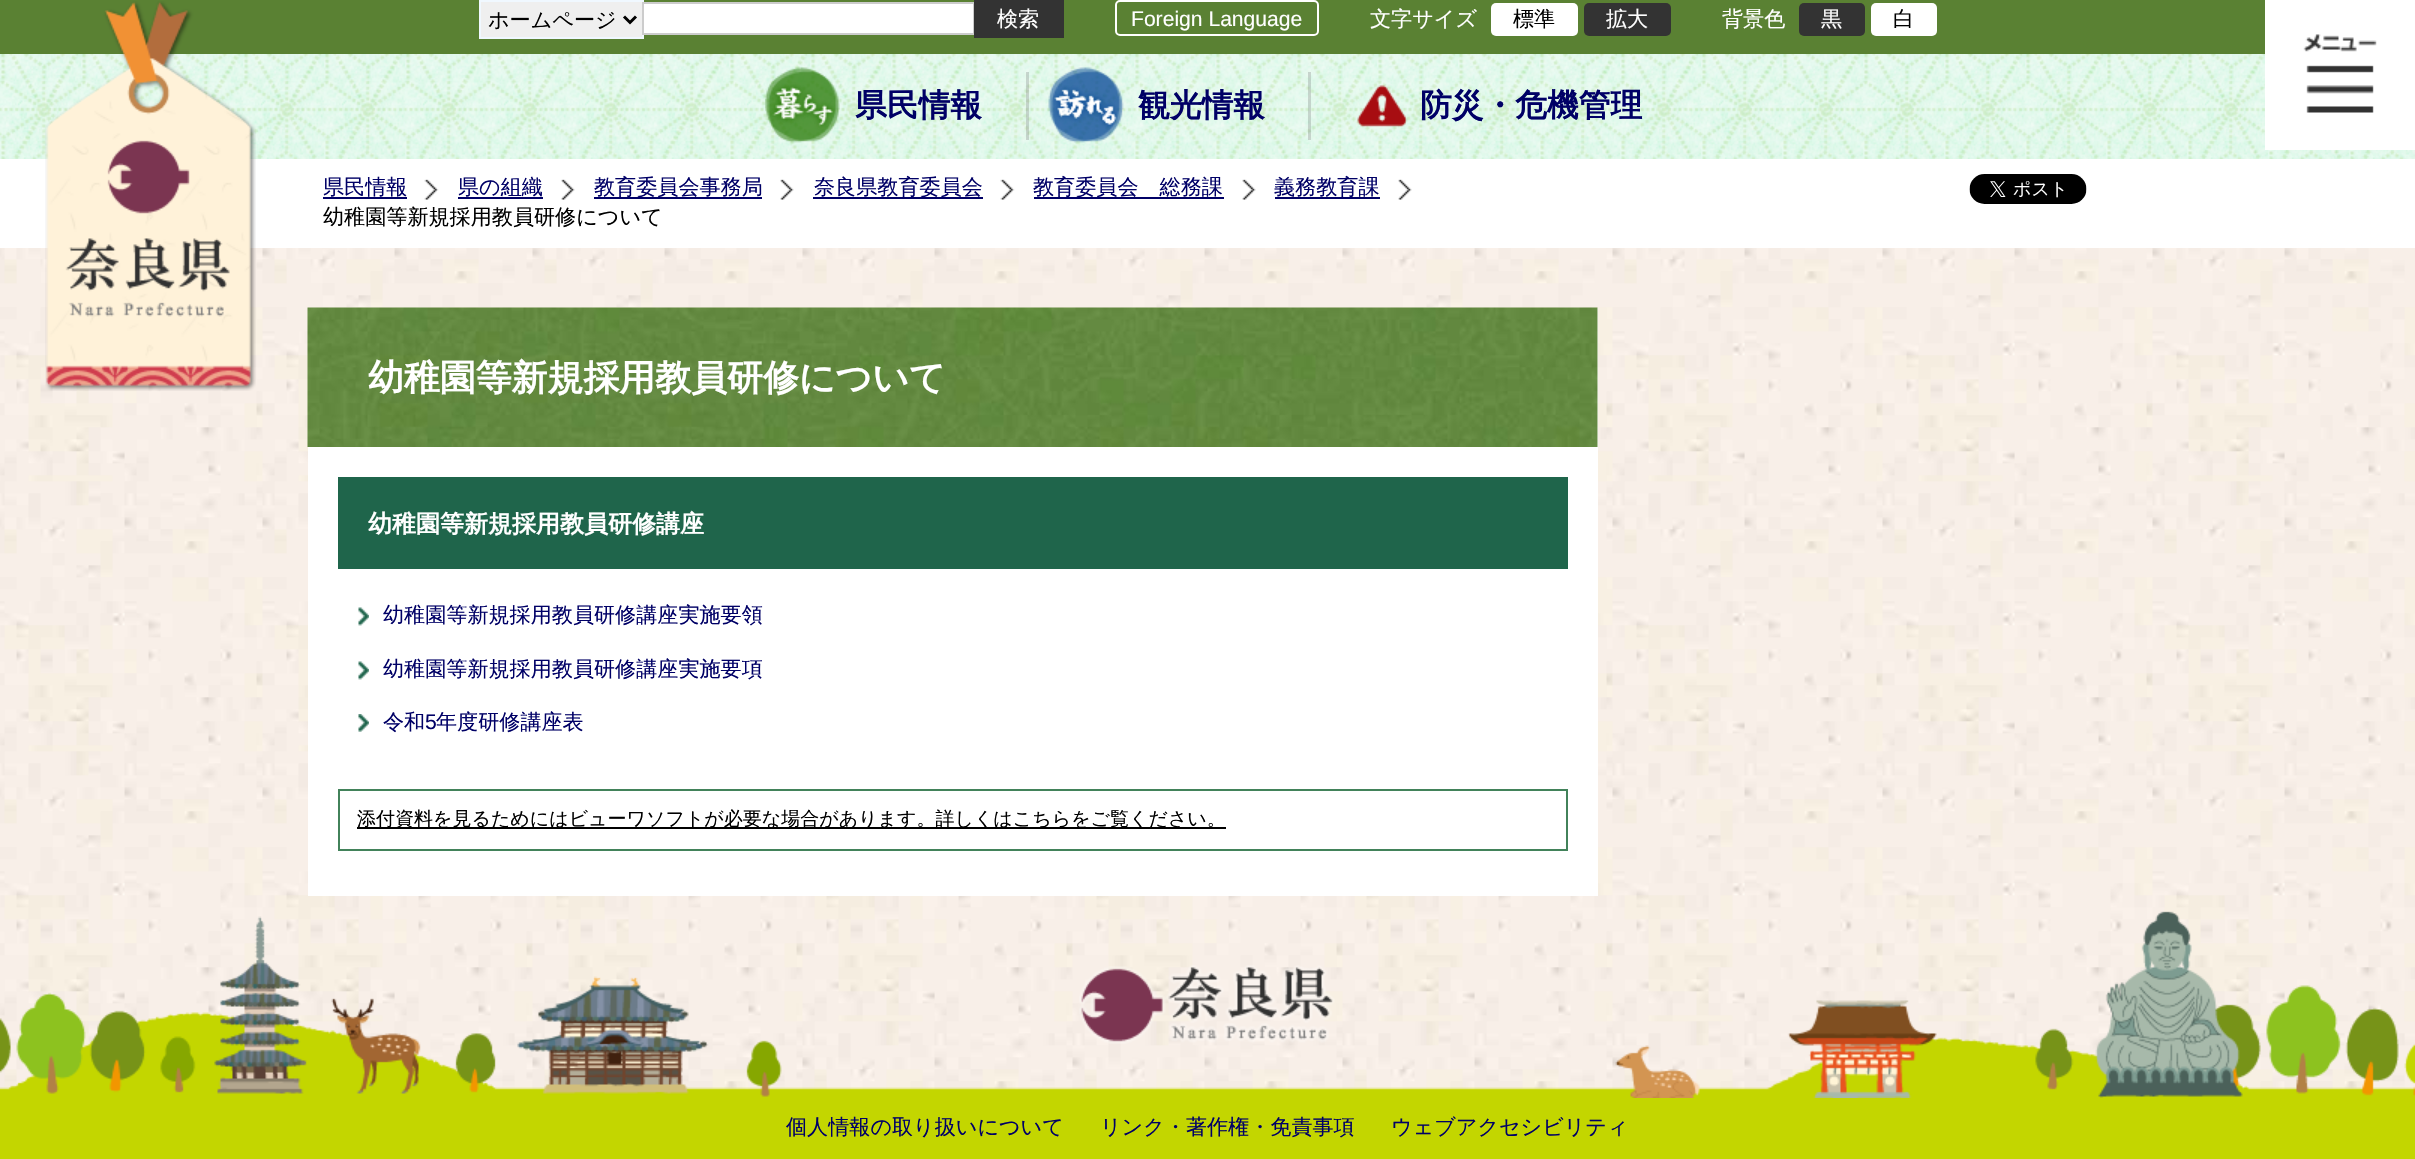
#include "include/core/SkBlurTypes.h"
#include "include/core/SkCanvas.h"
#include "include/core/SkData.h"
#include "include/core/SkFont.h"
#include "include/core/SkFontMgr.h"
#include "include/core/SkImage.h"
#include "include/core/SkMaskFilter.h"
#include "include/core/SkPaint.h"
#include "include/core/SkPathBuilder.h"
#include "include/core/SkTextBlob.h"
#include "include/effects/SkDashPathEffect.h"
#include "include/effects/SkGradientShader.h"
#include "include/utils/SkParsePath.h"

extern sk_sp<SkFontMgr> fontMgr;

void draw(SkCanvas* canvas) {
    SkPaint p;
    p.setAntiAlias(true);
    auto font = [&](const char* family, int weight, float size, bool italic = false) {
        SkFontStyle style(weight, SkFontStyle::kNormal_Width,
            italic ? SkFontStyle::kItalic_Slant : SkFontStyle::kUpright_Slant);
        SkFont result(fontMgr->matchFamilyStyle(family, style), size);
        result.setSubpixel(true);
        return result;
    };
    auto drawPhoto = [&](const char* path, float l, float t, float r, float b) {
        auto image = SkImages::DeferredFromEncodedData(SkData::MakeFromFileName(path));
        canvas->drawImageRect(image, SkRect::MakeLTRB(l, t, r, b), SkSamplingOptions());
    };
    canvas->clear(0xFFFFFFFF);
    drawPhoto("media/1.png", 0, 248, 2415, 1090);
    p.setColor(0xFF5A8133);
    canvas->drawRect(SkRect::MakeLTRB(0, 0, 2265, 54), p);
    drawPhoto("media/3.png", 0, 54, 2415, 159);
    drawPhoto("media/2.png", 45, 1, 256, 391);
    p.setColor(0xFFEFEFEF);
    canvas->drawRect(SkRect::MakeLTRB(480, 1, 643, 38), p);
    p.setStyle(SkPaint::kStroke_Style);
    p.setStrokeWidth(2);
    p.setColor(0xFFF0F8FF);
    canvas->drawRect(SkRect::MakeLTRB(480, 1, 643, 38), p);
    p.setStrokeWidth(3);
    p.setColor(0xFF000000);
    canvas->drawPath(SkPathBuilder().moveTo(624, 16.5f).lineTo(630, 22.5f).lineTo(636, 16.5f).detach(), p);
    auto font1 = font("WenQuanYi Zen Hei", 500, 21.1f);
    p.setStyle(SkPaint::kFill_Style);
    canvas->drawString("ホームページ", 488, 27, font1, p);
    p.setColor(0xFFFFFFFF);
    canvas->drawRect(SkRect::MakeLTRB(643, 3, 974, 34), p);
    p.setStyle(SkPaint::kStroke_Style);
    p.setStrokeWidth(2);
    p.setColor(0xFFCCCCCC);
    canvas->drawRect(SkRect::MakeLTRB(643, 3, 974, 34), p);
    p.setStyle(SkPaint::kFill_Style);
    p.setColor(0xFF333333);
    canvas->drawRect(SkRect::MakeLTRB(974, 0, 1064, 38), p);
    p.setColor(0xFFFFFFFF);
    canvas->drawString("検索", 997, 26, font1, p);
    p.setStyle(SkPaint::kStroke_Style);
    canvas->drawRoundRect(SkRect::MakeLTRB(1116, 1, 1318, 35), 4, 4, p);
    auto font2 = font("Liberation Sans", 400, 21.1f);
    p.setStyle(SkPaint::kFill_Style);
    canvas->drawString("Foreign Language", 1131, 26, font2, p);
    canvas->drawString("文字サイズ", 1370, 26, font1, p);
    canvas->drawRoundRect(SkRect::MakeLTRB(1491, 3, 1578, 36), 5, 5, p);
    p.setColor(0xFF000000);
    canvas->drawString("標準", 1513, 26, font1, p);
    p.setColor(0xFF333333);
    canvas->drawRoundRect(SkRect::MakeLTRB(1584, 3, 1671, 36), 5, 5, p);
    p.setColor(0xFFFFFFFF);
    canvas->drawString("拡大", 1606, 26, font1, p);
    canvas->drawString("背景色", 1722, 26, font1, p);
    p.setColor(0xFF333333);
    canvas->drawRoundRect(SkRect::MakeLTRB(1799, 3, 1865, 36), 5, 5, p);
    p.setColor(0xFFFFFFFF);
    canvas->drawString("黒", 1821, 26, font1, p);
    canvas->drawRoundRect(SkRect::MakeLTRB(1871, 3, 1937, 36), 5, 5, p);
    p.setColor(0xFF000000);
    canvas->drawString("白", 1893, 26, font1, p);
    drawPhoto("media/4.png", 765, 67, 840, 143);
    auto font3 = font("WenQuanYi Zen Hei", 700, 31.75f);
    p.setColor(0xFF000066);
    canvas->drawString("県民情報", 855, 116, font3, p);
    p.setColor(0x40686868);
    canvas->drawRect(SkRect::MakeLTRB(1026, 72, 1029, 140), p);
    drawPhoto("media/5.png", 1048, 67, 1124, 143);
    p.setColor(0xFF000066);
    canvas->drawString("観光情報", 1138, 116, font3, p);
    p.setColor(0x40686868);
    canvas->drawRect(SkRect::MakeLTRB(1308, 72, 1311, 140), p);
    drawPhoto("media/6.png", 1357, 85, 1408, 127);
    p.setColor(0xFF000066);
    canvas->drawString("防災・危機管理", 1420, 116, font3, p);
    drawPhoto("media/7.png", 2265, 0, 2415, 150);
    canvas->drawString("県民情報", 323, 194, font1, p);
    canvas->drawRect(SkRect::MakeLTRB(323, 197, 407, 199), p);
    drawPhoto("media/8.png", 424, 179, 439, 200);
    canvas->drawString("県の組織", 458, 194, font1, p);
    canvas->drawRect(SkRect::MakeLTRB(458, 197, 543, 199), p);
    drawPhoto("media/9.png", 561, 179, 575, 200);
    canvas->drawRect(SkRect::MakeLTRB(594, 197, 762, 199), p);
    canvas->drawString("教育委員会事務局", 594, 194, font1, p);
    drawPhoto("media/9.png", 780, 179, 794, 200);
    canvas->drawRect(SkRect::MakeLTRB(813, 197, 983, 199), p);
    canvas->drawString("奈良県教育委員会", 814, 194, font1, p);
    drawPhoto("media/10.png", 1000, 179, 1015, 200);
    canvas->drawRect(SkRect::MakeLTRB(1034, 197, 1224, 199), p);
    canvas->drawString("教育委員会　総務課", 1033, 194, font1, p);
    drawPhoto("media/11.png", 1242, 179, 1256, 200);
    canvas->drawRect(SkRect::MakeLTRB(1275, 197, 1380, 199), p);
    canvas->drawString("義務教育課", 1274, 194, font1, p);
    drawPhoto("media/9.png", 1398, 179, 1412, 200);
    p.setColor(0xFF000000);
    canvas->drawString("幼稚園等新規採用教員研修について", 323, 224, font1, p);
    drawPhoto("media/12.png", 1969, 174, 2087, 204);
    p.setColor(0xFFFFFFFF);
    canvas->drawRect(SkRect::MakeLTRB(308, 308, 1598, 896), p);
    drawPhoto("media/13.png", 307, 307, 1598, 447);
    auto font4 = font("WenQuanYi Zen Hei", 700, 35.9f);
    canvas->drawString("幼稚園等新規採用教員研修について", 368, 390, font4, p);
    p.setColor(0xFF1F654B);
    canvas->drawRect(SkRect::MakeLTRB(338, 477, 1568, 569), p);
    auto font5 = font("WenQuanYi Zen Hei", 700, 24);
    p.setColor(0xFFFFFFFF);
    canvas->drawString("幼稚園等新規採用教員研修講座", 368, 532, font5, p);
    drawPhoto("media/14.png", 358, 607, 369, 626);
    p.setColor(0xFF000066);
    canvas->drawString("幼稚園等新規採用教員研修講座実施要領", 383, 622, font1, p);
    drawPhoto("media/14.png", 358, 661, 369, 680);
    canvas->drawString("幼稚園等新規採用教員研修講座実施要項", 383, 676, font1, p);
    drawPhoto("media/15.png", 358, 714, 369, 732);
    canvas->drawString("令和", 383, 729, font1, p);
    canvas->drawString("5", 425, 729, font2, p);
    canvas->drawString("年度研修講座表", 436, 729, font1, p);
    p.setStyle(SkPaint::kStroke_Style);
    p.setColor(0xFF42825A);
    canvas->drawRect(SkRect::MakeLTRB(339, 790, 1567, 850), p);
    p.setStyle(SkPaint::kFill_Style);
    p.setColor(0xFF000000);
    canvas->drawRect(SkRect::MakeLTRB(357, 827, 1226, 829), p);
    auto font6 = font("WenQuanYi Zen Hei", 500, 19);
    canvas->drawString("添付資料を見るためにはビューワソフトが必要な場合があります。詳しくはこちらをご覧ください。", 357, 825, font6, p);
    drawPhoto("media/16.png", 0, 911, 2415, 1098);
    drawPhoto("media/17.png", 1079, 965, 1335, 1044);
    p.setColor(0xFFC3D600);
    canvas->drawRect(SkRect::MakeLTRB(0, 1098, 2415, 1159), p);
    p.setColor(0xFF000066);
    {
        const struct { const char* s; float x, y; } items[] = {
            {"個人情報の取り扱いについて", 786, 1134},
            {"リンク・著作権・免責事項", 1100, 1134},
            {"ウェブアクセシビリティ", 1391, 1134},
        };
        for (auto [s, x, y] : items) {
            canvas->drawString(s, x, y, font1, p);
        }
    }
}
